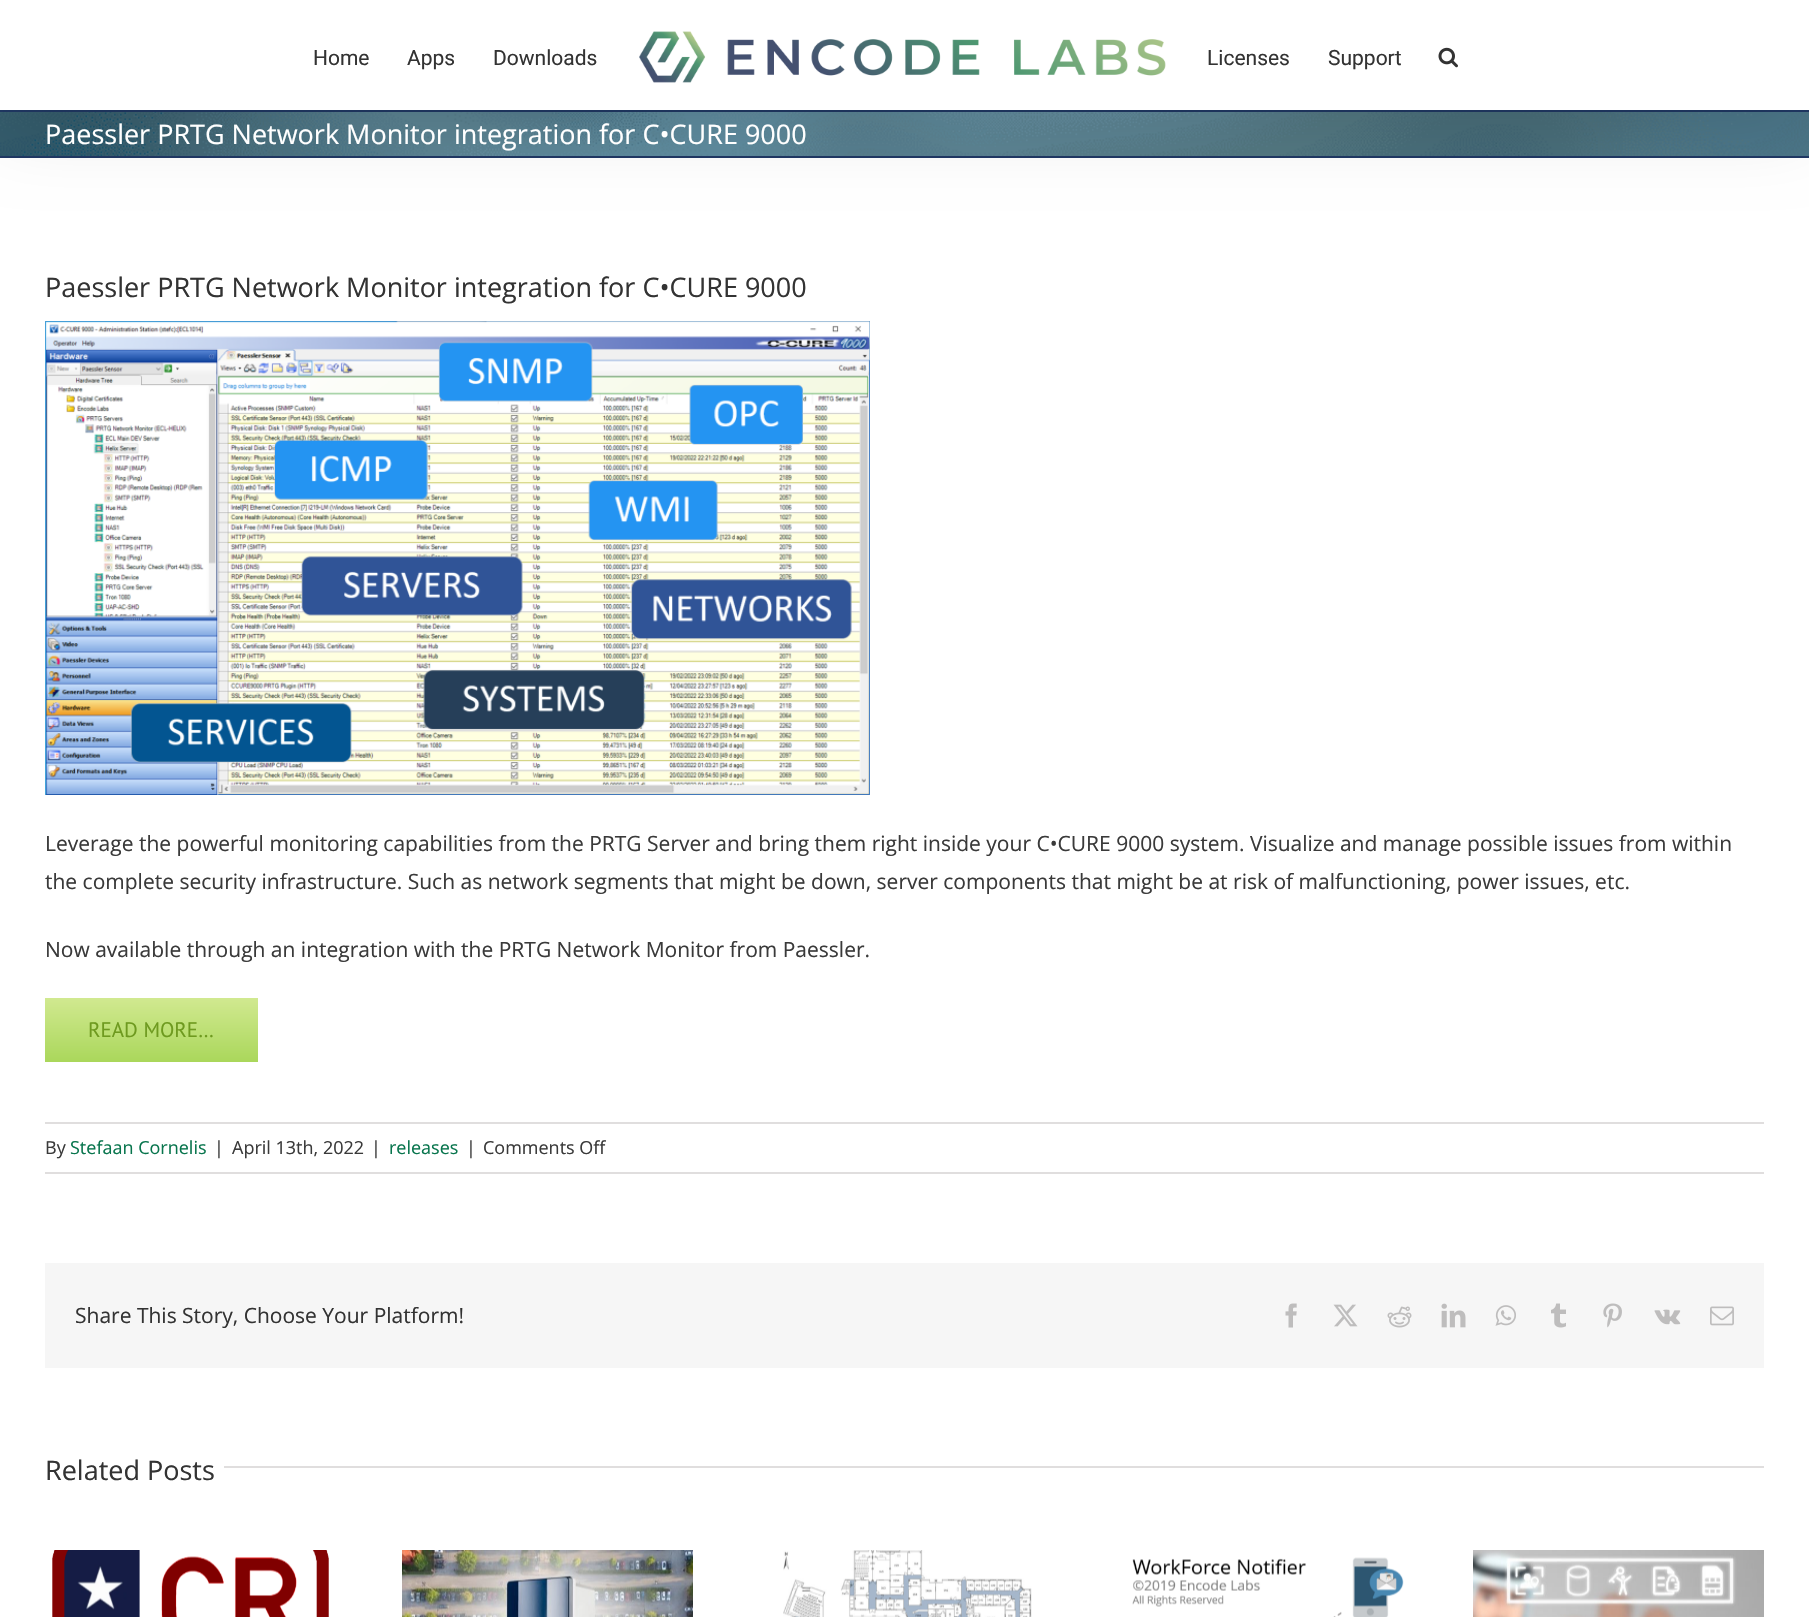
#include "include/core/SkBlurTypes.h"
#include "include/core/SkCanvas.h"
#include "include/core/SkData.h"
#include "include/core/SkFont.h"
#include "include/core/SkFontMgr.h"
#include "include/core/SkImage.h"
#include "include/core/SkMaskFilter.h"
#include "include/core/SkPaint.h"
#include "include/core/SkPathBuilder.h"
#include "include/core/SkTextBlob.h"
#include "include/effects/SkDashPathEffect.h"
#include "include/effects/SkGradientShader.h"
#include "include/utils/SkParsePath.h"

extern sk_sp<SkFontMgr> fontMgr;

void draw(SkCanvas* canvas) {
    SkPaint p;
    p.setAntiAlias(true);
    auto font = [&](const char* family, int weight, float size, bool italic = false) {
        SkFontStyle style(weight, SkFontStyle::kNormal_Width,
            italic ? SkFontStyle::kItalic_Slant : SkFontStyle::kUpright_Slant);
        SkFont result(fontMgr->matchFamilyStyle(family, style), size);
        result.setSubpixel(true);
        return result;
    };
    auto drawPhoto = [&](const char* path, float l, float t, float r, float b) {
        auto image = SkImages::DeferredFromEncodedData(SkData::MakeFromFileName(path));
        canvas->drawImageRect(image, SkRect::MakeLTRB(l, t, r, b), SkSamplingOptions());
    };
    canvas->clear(0xFFFFFFFF);
    drawPhoto("media/3.png", 0, 112, 1809, 156);
    p.setColor(0xFF203864);
    canvas->drawRect(SkRect::MakeLTRB(0, 110, 1809, 112), p);
    canvas->drawRect(SkRect::MakeLTRB(0, 156, 1809, 158), p);
    p.setColor(0x24000000);
    p.setMaskFilter(SkMaskFilter::MakeBlur(kNormal_SkBlurStyle, 37.5f));
    canvas->drawRect(SkRect::MakeLTRB(3, 18, 1806, 122), p);
    p.setMaskFilter(nullptr);
    p.setColor(0xFFFFFFFF);
    canvas->drawRect(SkRect::MakeLTRB(0, 0, 1809, 110), p);
    auto font1 = font("Roboto", 400, 21);
    p.setColor(0xFF333333);
    {
        const struct { const char* s; float x, y; } items[] = {
            {"Home", 313, 65},
            {"Apps", 407, 65},
            {"Downloads", 493, 65},
        };
        for (auto [s, x, y] : items) {
            canvas->drawString(s, x, y, font1, p);
        }
    }
    drawPhoto("media/1.png", 639, 31, 1166, 83);
    canvas->drawString("Licenses", 1207, 65, font1, p);
    canvas->drawString("Support", 1328, 65, font1, p);
    drawPhoto("media/2.png", 1438, 47, 1458, 68);
    auto font2 = font("Open Sans", 400, 27);
    p.setColor(0xFFFFFFFF);
    canvas->drawString("Paessler PRTG Network Monitor integration for C•CURE 9000", 45, 144, font2, p);
    p.setColor(0xFF333333);
    canvas->drawString("Paessler PRTG Network Monitor integration for C•CURE 9000", 45, 297, font2, p);
    drawPhoto("media/4.png", 45, 321, 870, 795);
    auto font3 = font("Open Sans", 400, 21);
    p.setColor(0xFF3A3A3A);
    {
        const struct { const char* s; float x, y; } items[] = {
            {"Leverage the powerful monitoring capabilities from the PRTG Server and bring them right inside your C•CURE 9000 system. Visualize and manage possible issues from within", 45, 851},
            {"the complete security infrastructure. Such as network segments that might be down, server components that might be at risk of malfunctioning, power issues, etc.", 45, 889},
            {"Now available through an integration with the PRTG Network Monitor from Paessler.", 45, 957},
        };
        for (auto [s, x, y] : items) {
            canvas->drawString(s, x, y, font3, p);
        }
    }
    {
        const SkColor colors[] = {0xFFD1E990, 0xFFAAD75B};
        const float stops[] = {0, 1};
        const SkPoint ends[] = {{152, 998}, {152, 1062}};
        p.setShader(SkGradientShader::MakeLinear(ends, colors, stops, 2, SkTileMode::kClamp));
        p.setAlpha(255);
    }
    canvas->drawRect(SkRect::MakeLTRB(45, 998, 258, 1062), p);
    auto font4 = font("PT Sans", 400, 21);
    p.setShader(nullptr);
    p.setColor(0xFF6E9A1F);
    canvas->drawString("READ MORE…", 88, 1037, font4, p);
    p.setColor(0xFFE0DEDE);
    canvas->drawRect(SkRect::MakeLTRB(45, 1122, 1764, 1124), p);
    canvas->drawRect(SkRect::MakeLTRB(45, 1172, 1764, 1174), p);
    auto font5 = font("Open Sans", 400, 18);
    p.setColor(0xFF3A3A3A);
    canvas->drawString("By", 45, 1154, font5, p);
    p.setColor(0xFF08754D);
    canvas->drawString("Stefaan Cornelis", 70, 1154, font5, p);
    p.setColor(0xFF3A3A3A);
    {
        const struct { const char* s; float x, y; } items[] = {
            {"|", 214, 1154},
            {"April 13th, 2022", 232, 1154},
            {"|", 371, 1154},
        };
        for (auto [s, x, y] : items) {
            canvas->drawString(s, x, y, font5, p);
        }
    }
    p.setColor(0xFF08754D);
    canvas->drawString("releases", 389, 1154, font5, p);
    p.setColor(0xFF3A3A3A);
    canvas->drawString("|", 466, 1154, font5, p);
    canvas->drawString("Comments Off", 483, 1154, font5, p);
    p.setColor(0xFFF6F6F6);
    canvas->drawRect(SkRect::MakeLTRB(45, 1263, 1764, 1368), p);
    p.setColor(0xFF333333);
    canvas->drawString("Share This Story, Choose Your Platform!", 75, 1323, font3, p);
    drawPhoto("media/5.png", 1285, 1303, 1297, 1328);
    drawPhoto("media/6.png", 1333, 1304, 1358, 1327);
    drawPhoto("media/7.png", 1387, 1306, 1412, 1328);
    drawPhoto("media/8.png", 1441, 1303, 1466, 1328);
    drawPhoto("media/9.png", 1495, 1305, 1516, 1326);
    drawPhoto("media/10.png", 1551, 1303, 1566, 1328);
    drawPhoto("media/11.png", 1603, 1303, 1622, 1328);
    drawPhoto("media/12.png", 1654, 1309, 1681, 1325);
    drawPhoto("media/13.png", 1710, 1306, 1734, 1326);
    canvas->drawString("Related Posts", 45, 1480, font2, p);
    p.setColor(0xFFE0DEDE);
    canvas->drawRect(SkRect::MakeLTRB(224, 1466, 1764, 1468), p);
    drawPhoto("media/14.png", 52, 1550, 329, 1617);
    drawPhoto("media/15.png", 402, 1550, 693, 1617);
    drawPhoto("media/16.png", 783, 1550, 1032, 1617);
    drawPhoto("media/17.png", 1132, 1557, 1404, 1617);
    drawPhoto("media/18.png", 1473, 1550, 1764, 1617);
}
